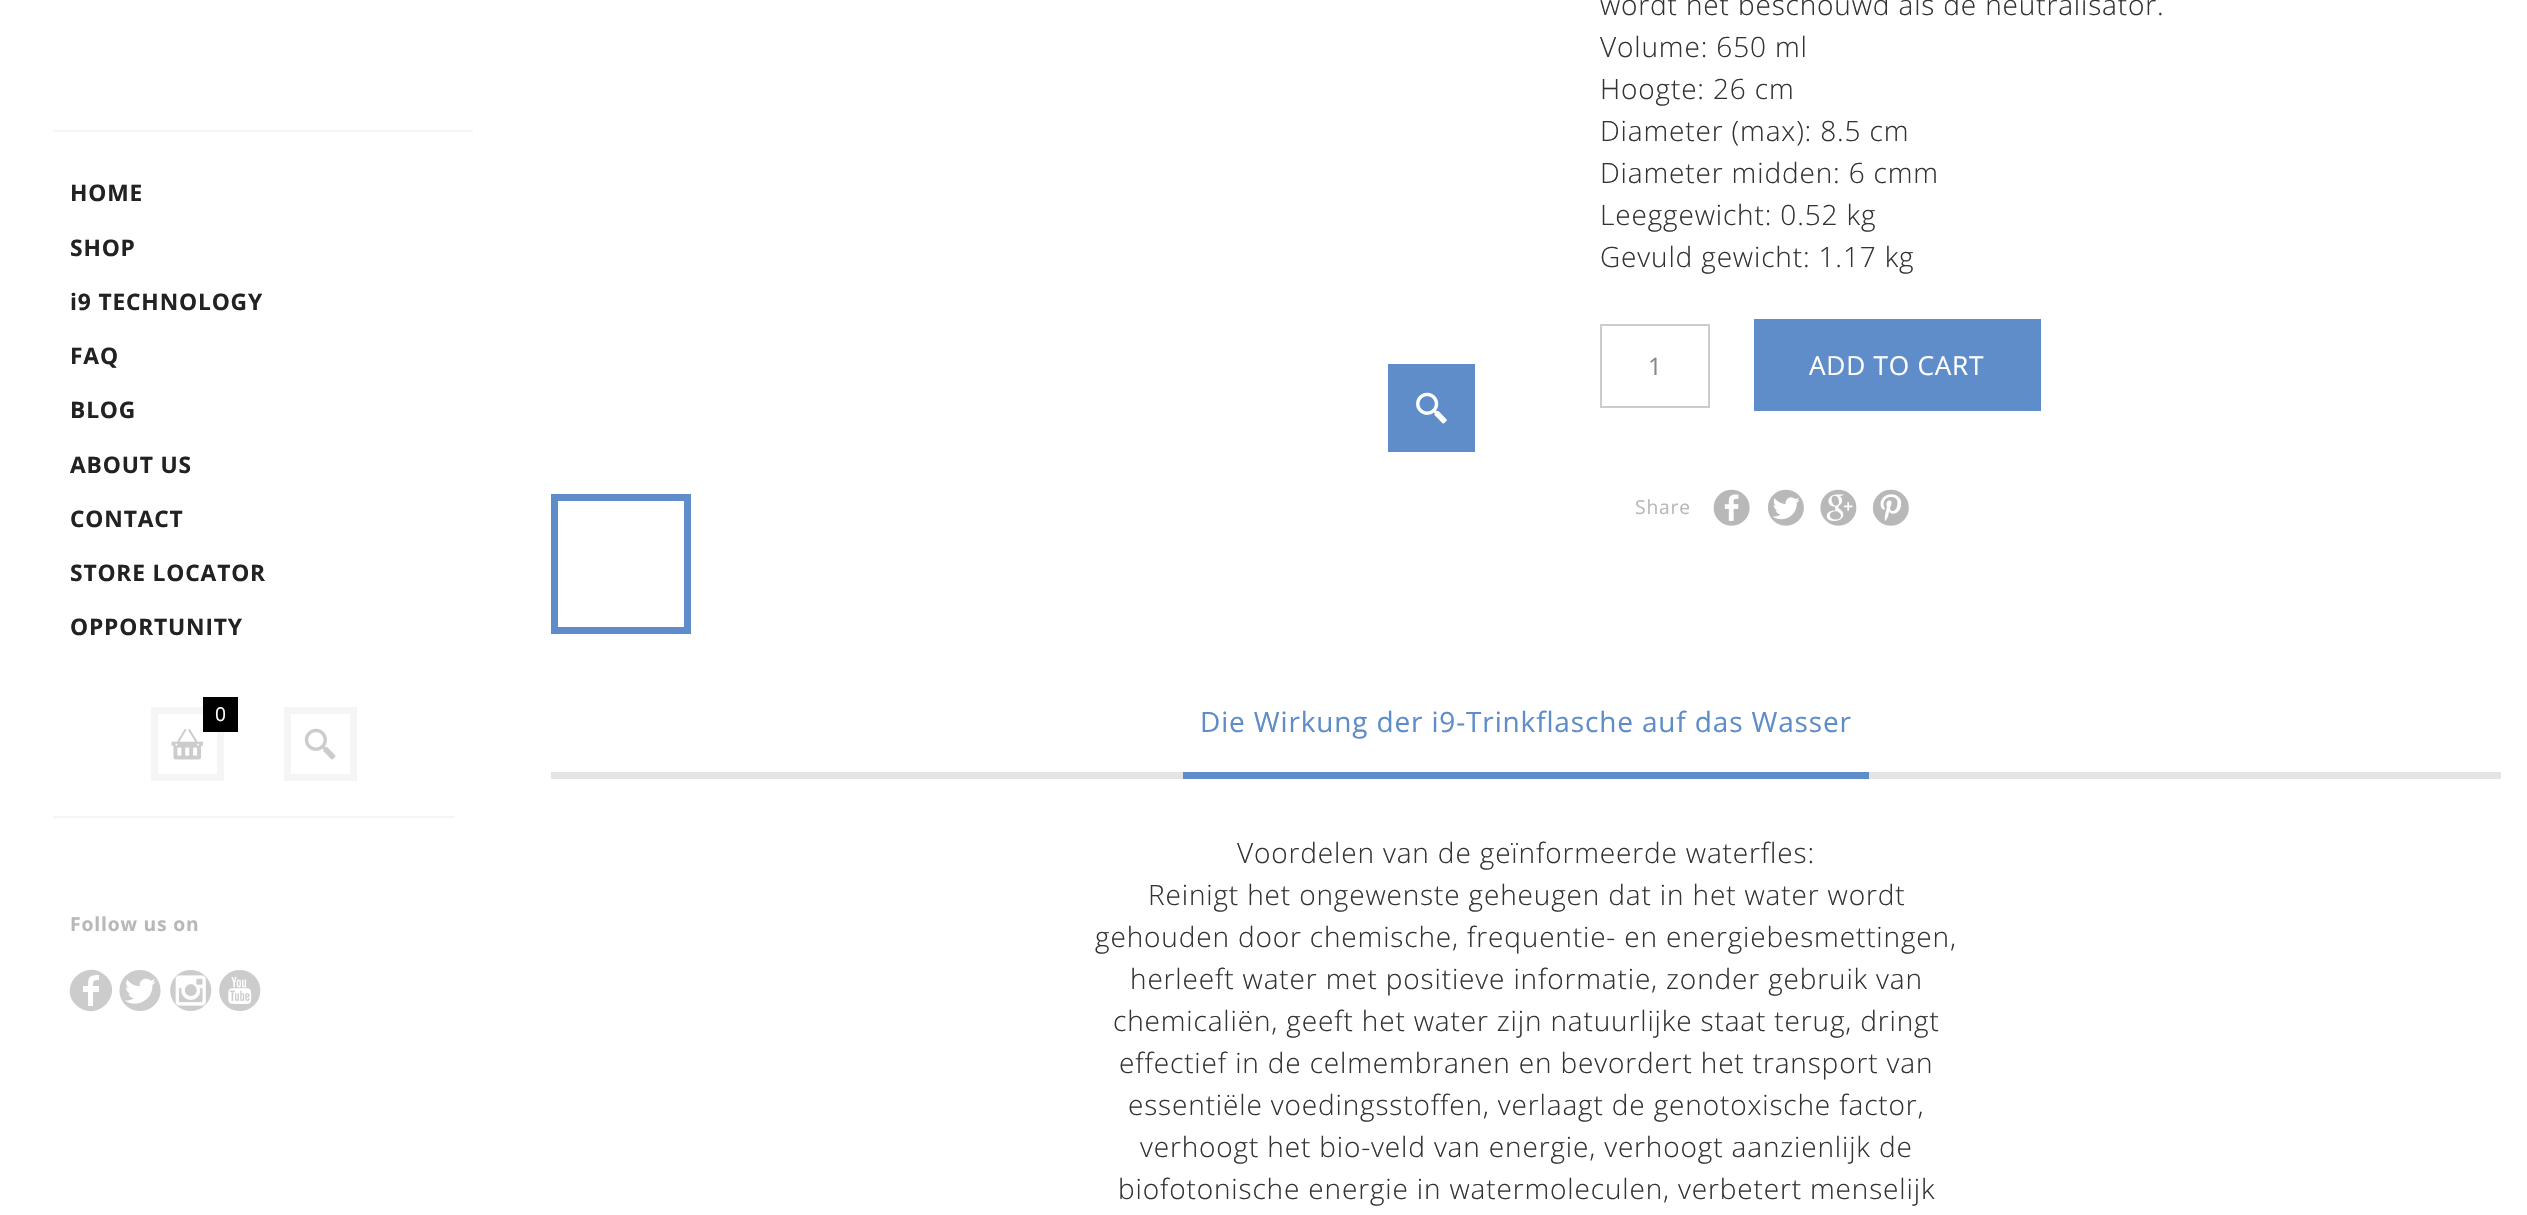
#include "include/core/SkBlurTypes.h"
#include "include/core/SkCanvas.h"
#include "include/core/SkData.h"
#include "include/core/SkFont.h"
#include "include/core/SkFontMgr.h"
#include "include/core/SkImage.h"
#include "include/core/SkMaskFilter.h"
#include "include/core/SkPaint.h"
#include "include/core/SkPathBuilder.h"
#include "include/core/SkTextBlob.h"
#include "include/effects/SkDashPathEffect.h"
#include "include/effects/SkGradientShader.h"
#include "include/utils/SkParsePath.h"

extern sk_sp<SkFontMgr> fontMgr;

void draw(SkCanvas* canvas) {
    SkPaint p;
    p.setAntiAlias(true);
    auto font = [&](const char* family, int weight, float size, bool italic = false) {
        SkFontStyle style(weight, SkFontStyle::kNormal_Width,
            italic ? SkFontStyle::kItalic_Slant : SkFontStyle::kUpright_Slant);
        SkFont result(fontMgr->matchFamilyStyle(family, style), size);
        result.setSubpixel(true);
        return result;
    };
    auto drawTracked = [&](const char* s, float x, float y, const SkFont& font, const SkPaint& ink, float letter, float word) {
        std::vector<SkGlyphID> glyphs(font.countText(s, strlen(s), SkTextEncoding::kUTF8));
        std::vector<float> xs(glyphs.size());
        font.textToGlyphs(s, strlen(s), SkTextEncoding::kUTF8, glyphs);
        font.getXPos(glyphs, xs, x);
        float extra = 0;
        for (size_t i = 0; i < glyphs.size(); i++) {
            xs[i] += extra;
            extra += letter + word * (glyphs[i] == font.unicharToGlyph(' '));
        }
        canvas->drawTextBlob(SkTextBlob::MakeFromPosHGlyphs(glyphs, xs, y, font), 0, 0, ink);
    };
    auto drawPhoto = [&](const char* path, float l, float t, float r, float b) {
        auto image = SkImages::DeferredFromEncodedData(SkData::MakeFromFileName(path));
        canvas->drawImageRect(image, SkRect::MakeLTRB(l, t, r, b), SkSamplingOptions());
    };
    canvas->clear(0xFFFFFFFF);
    p.setColor(0xFFF5F5F5);
    canvas->drawRect(SkRect::MakeLTRB(53, 130, 473, 132), p);
    auto font1 = font("Open Sans", 700, 22.75f);
    p.setColor(0xFF222222);
    {
        const struct { const char* s; float x, y; } items[] = {
            {"HOME", 70, 201},
            {"SHOP", 70, 256},
            {"i9 TECHNOLOGY", 70, 310},
            {"FAQ", 70, 364},
            {"BLOG", 70, 418},
            {"ABOUT US", 70, 473},
            {"CONTACT", 70, 527},
            {"STORE LOCATOR", 70, 581},
            {"OPPORTUNITY", 70, 635},
        };
        for (auto [s, x, y] : items) {
            drawTracked(s, x, y, font1, p, 0.85f, 0);
        }
    }
    p.setColor(0xFFF5F5F5);
    canvas->drawRect(SkRect::MakeLTRB(53, 816, 455, 818), p);
    p.setStyle(SkPaint::kStroke_Style);
    p.setStrokeWidth(7);
    canvas->drawRect(SkRect::MakeLTRB(154.5f, 710.5f, 220.5f, 777.5f), p);
    p.setStyle(SkPaint::kFill_Style);
    p.setColor(0xFF000000);
    canvas->drawRect(SkRect::MakeLTRB(203, 697, 238, 732), p);
    auto font2 = font("Open Sans", 400, 19.25f);
    p.setColor(0xFFFFFFFF);
    drawTracked("0", 215, 721, font2, p, 0.85f, 0);
    drawPhoto("media/1.png", 171, 729, 203, 760);
    p.setStyle(SkPaint::kStroke_Style);
    p.setColor(0xFFF5F5F5);
    canvas->drawRect(SkRect::MakeLTRB(287.5f, 710.5f, 353.5f, 777.5f), p);
    drawPhoto("media/2.png", 304, 728, 336, 760);
    auto font3 = font("Open Sans", 700, 19.25f);
    p.setStyle(SkPaint::kFill_Style);
    p.setColor(0xFFB8B8B8);
    drawTracked("Follow us on", 70, 931, font3, p, 0.85f, 0);
    p.setColor(0xFFCCCCCC);
    canvas->drawPath(SkPathBuilder().moveTo(106, 976).cubicTo(86, 957, 57, 986, 76, 1005).cubicTo(96, 1024, 125, 995, 106, 976).close().moveTo(99, 980).cubicTo(93, 980, 93, 981, 93, 986).lineTo(99, 986).lineTo(99, 992).lineTo(93, 992).lineTo(93, 1006).lineTo(88, 1006).lineTo(88, 992).lineTo(83, 992).lineTo(83, 986).lineTo(88, 986).cubicTo(88, 977, 89, 975, 99, 975).close().detach(), p);
    drawPhoto("media/3.png", 119, 970, 161, 1011);
    drawPhoto("media/4.png", 170, 970, 212, 1011);
    drawPhoto("media/5.png", 219, 970, 261, 1011);
    p.setColor(0xFF5E8DCA);
    canvas->drawRect(SkRect::MakeLTRB(1388, 364, 1475, 452), p);
    drawPhoto("media/6.png", 1416, 392, 1447, 424);
    p.setStyle(SkPaint::kStroke_Style);
    canvas->drawRect(SkRect::MakeLTRB(554.5f, 497.5f, 687.5f, 630.5f), p);
    auto font4 = font("Open Sans", 300, 28);
    p.setStyle(SkPaint::kFill_Style);
    p.setColor(0xFF333333);
    {
        const struct { const char* s; float x, y; } items[] = {
            {"wordt het beschouwd als de neutralisator.", 1600, 15},
            {"Volume: 650 ml", 1600, 57},
            {"Hoogte: 26 cm", 1600, 99},
            {"Diameter (max): 8.5 cm", 1600, 141},
            {"Diameter midden: 6 cmm", 1600, 183},
            {"Leeggewicht: 0.52 kg", 1600, 225},
            {"Gevuld gewicht: 1.17 kg", 1600, 267},
        };
        for (auto [s, x, y] : items) {
            drawTracked(s, x, y, font4, p, 0.85f, 0);
        }
    }
    p.setStyle(SkPaint::kStroke_Style);
    p.setStrokeWidth(2);
    p.setColor(0xFFCCCCCC);
    canvas->drawRect(SkRect::MakeLTRB(1601, 325, 1709, 407), p);
    auto font5 = font("Open Sans", 400, 24);
    p.setStyle(SkPaint::kFill_Style);
    p.setColor(0xFF878787);
    canvas->drawString("1", 1648, 375, font5, p);
    p.setColor(0xFF5E8DCA);
    canvas->drawRect(SkRect::MakeLTRB(1754, 319, 2041, 411), p);
    auto font6 = font("Open Sans", 400, 26.25f);
    p.setColor(0xFFFFFFFF);
    drawTracked("ADD TO CART", 1809, 375, font6, p, 0.75f, 0);
    p.setColor(0xFFB8B8B8);
    drawTracked("Share", 1635, 514, font2, p, 0.85f, 0);
    drawPhoto("media/7.png", 1713, 489, 1750, 526);
    drawPhoto("media/8.png", 1767, 489, 1804, 526);
    drawPhoto("media/9.png", 1820, 489, 1857, 526);
    drawPhoto("media/10.png", 1872, 489, 1909, 526);
    p.setColor(0xFFE4E4E4);
    canvas->drawRect(SkRect::MakeLTRB(551, 772, 2501, 779), p);
    p.setColor(0xFF5E8DCA);
    canvas->drawRect(SkRect::MakeLTRB(1183, 772, 1869, 779), p);
    auto font7 = font("Open Sans", 400, 28);
    drawTracked("Die Wirkung der i9-Trinkflasche auf das Wasser", 1200, 732, font7, p, 0.85f, 0);
    p.setColor(0xFF333333);
    {
        const struct { const char* s; float x, y; } items[] = {
            {"Voordelen van de geïnformeerde waterfles:", 1237, 863},
            {"Reinigt het ongewenste geheugen dat in het water wordt", 1148, 905},
            {"gehouden door chemische, frequentie- en energiebesmettingen,", 1095, 947},
            {"herleeft water met positieve informatie, zonder gebruik van", 1130, 989},
            {"chemicaliën, geeft het water zijn natuurlijke staat terug, dringt", 1113, 1031},
            {"effectief in de celmembranen en bevordert het transport van", 1119, 1073},
            {"essentiële voedingsstoffen, verlaagt de genotoxische factor,", 1128, 1115},
            {"verhoogt het bio-veld van energie, verhoogt aanzienlijk de", 1140, 1157},
            {"biofotonische energie in watermoleculen, verbetert menselijk", 1118, 1199},
        };
        for (auto [s, x, y] : items) {
            drawTracked(s, x, y, font4, p, 0.85f, 0);
        }
    }
}
